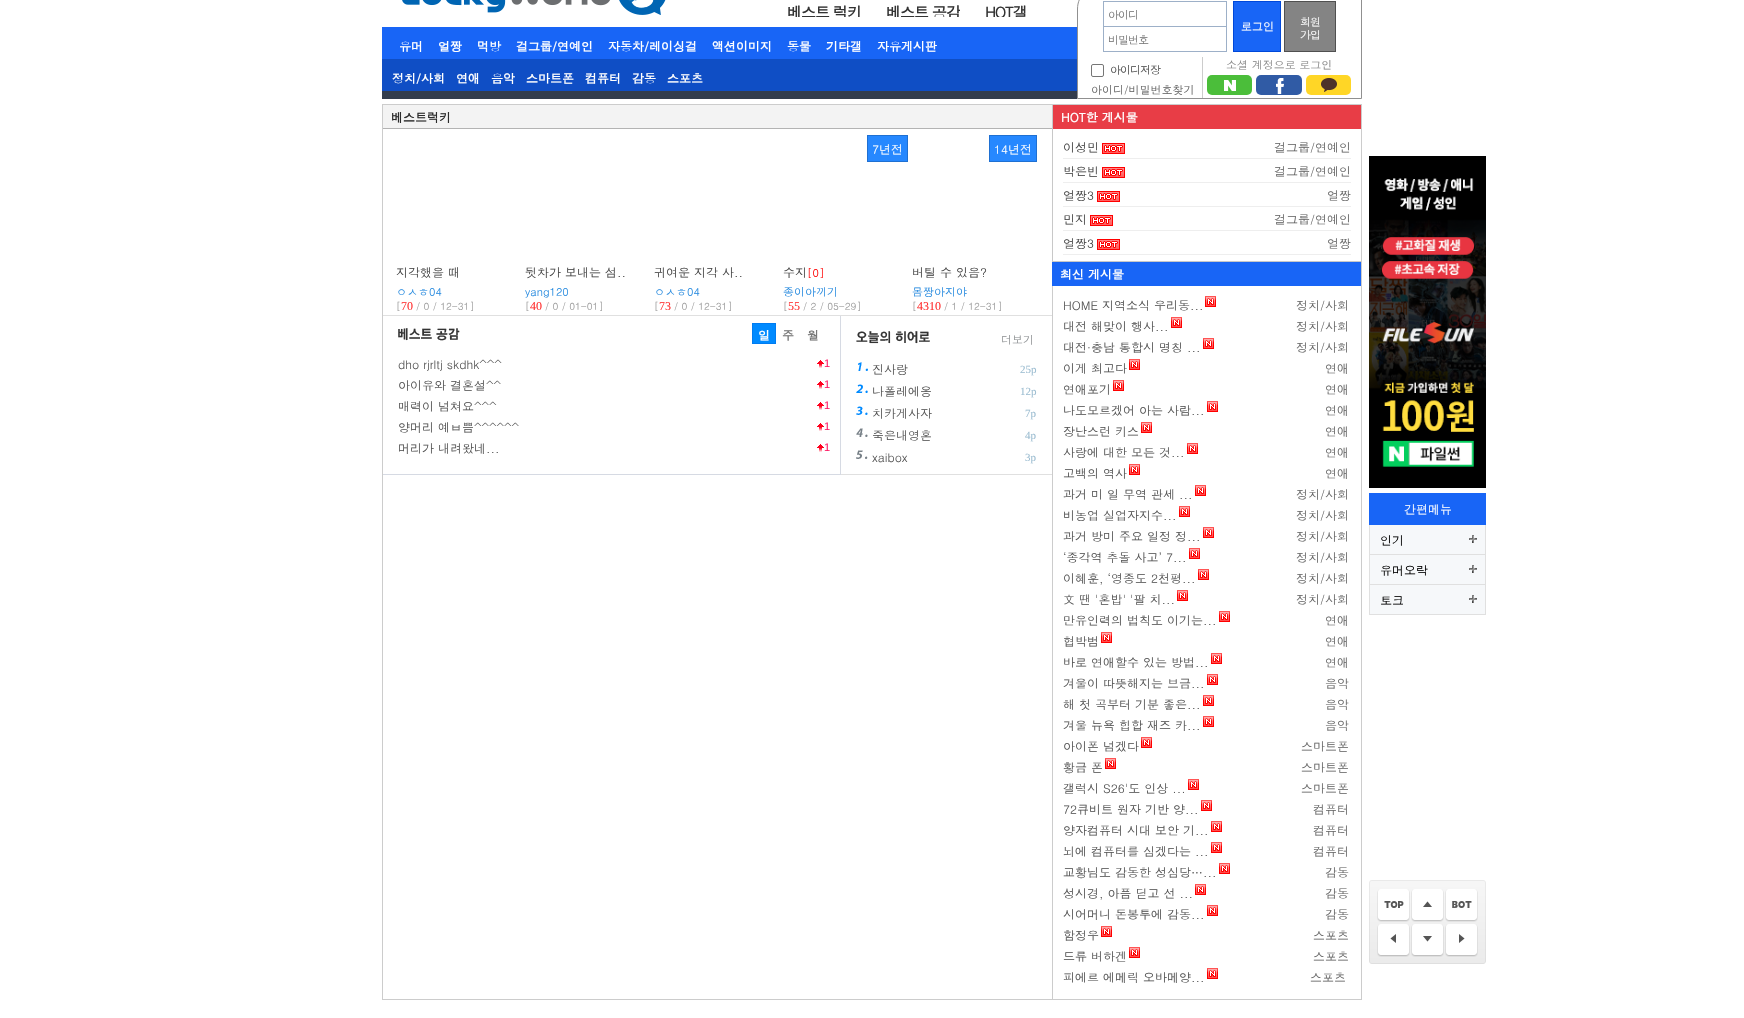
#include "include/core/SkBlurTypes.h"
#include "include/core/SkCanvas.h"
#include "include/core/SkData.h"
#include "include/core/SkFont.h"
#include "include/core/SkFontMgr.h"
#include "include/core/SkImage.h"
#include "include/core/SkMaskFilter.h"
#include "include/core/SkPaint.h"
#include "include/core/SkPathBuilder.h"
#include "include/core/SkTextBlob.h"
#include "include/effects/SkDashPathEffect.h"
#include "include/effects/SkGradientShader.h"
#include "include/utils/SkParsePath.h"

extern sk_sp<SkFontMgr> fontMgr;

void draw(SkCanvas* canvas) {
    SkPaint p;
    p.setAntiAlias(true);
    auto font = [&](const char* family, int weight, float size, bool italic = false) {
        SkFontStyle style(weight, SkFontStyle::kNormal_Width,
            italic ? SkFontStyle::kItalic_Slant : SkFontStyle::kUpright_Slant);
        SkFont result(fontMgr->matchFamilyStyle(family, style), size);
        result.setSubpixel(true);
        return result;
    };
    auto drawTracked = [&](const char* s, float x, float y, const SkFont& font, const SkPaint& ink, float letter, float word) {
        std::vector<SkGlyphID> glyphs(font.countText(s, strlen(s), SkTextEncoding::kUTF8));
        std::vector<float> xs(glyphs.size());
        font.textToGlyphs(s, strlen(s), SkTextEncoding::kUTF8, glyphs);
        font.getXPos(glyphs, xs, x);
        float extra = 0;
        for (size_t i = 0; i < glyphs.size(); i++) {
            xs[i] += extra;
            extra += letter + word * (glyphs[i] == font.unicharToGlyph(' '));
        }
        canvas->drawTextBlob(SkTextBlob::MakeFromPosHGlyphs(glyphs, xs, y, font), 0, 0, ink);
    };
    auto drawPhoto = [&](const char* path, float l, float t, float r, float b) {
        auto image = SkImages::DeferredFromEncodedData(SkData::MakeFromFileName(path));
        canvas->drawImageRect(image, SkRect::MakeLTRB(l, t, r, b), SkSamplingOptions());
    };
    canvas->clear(0xFFFFFFFF);
    drawPhoto("media/1.png", 402, 0, 666, 15);
    canvas->save();
    canvas->clipRect(SkRect::MakeLTRB(787, 1, 861, 17));
    auto font1 = font("Dotum", 700, 15);
    p.setColor(0xFF333333);
    drawTracked("베스트 럭키", 787, 18, font1, p, -1, 0);
    canvas->restore();
    canvas->save();
    canvas->clipRect(SkRect::MakeLTRB(886, 1, 960, 17));
    drawTracked("베스트 공감", 886, 18, font1, p, -1, 0);
    canvas->restore();
    canvas->save();
    canvas->clipRect(SkRect::MakeLTRB(985, 1, 1027, 17));
    drawTracked("HOT갤", 985, 18, font1, p, -1, 0);
    canvas->restore();
    p.setStyle(SkPaint::kStroke_Style);
    p.setStrokeWidth(1);
    p.setColor(0xFF909090);
    canvas->drawPath(SkPathBuilder().moveTo(1102, -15.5f).lineTo(1357, -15.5f).cubicTo(1359.5f, -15.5f, 1361.5f, -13.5f, 1361.5f, -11).lineTo(1361.5f, 98.5f).lineTo(1077.5f, 98.5f).lineTo(1077.5f, 9).cubicTo(1077.5f, -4.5f, 1088.5f, -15.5f, 1102, -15.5f).close().detach(), p);
    p.setColor(0xFF9DB0C8);
    canvas->drawRect(SkRect::MakeLTRB(1103.5f, 1.5f, 1226.5f, 26.5f), p);
    auto font2 = font("Dotum", 400, 11);
    p.setStyle(SkPaint::kFill_Style);
    p.setColor(0xFF777777);
    drawTracked("아이디", 1108, 19, font2, p, -1, 0);
    p.setStyle(SkPaint::kStroke_Style);
    p.setColor(0xFF9DB0C8);
    canvas->drawRect(SkRect::MakeLTRB(1103.5f, 26.5f, 1226.5f, 51.5f), p);
    p.setStyle(SkPaint::kFill_Style);
    p.setColor(0xFF777777);
    drawTracked("비밀번호", 1108, 44, font2, p, -1, 0);
    p.setColor(0xFF1865F6);
    canvas->drawRect(SkRect::MakeLTRB(1233.5f, 1.5f, 1280.5f, 51.5f), p);
    p.setStyle(SkPaint::kStroke_Style);
    p.setColor(0xFF0048D9);
    canvas->drawRect(SkRect::MakeLTRB(1233.5f, 1.5f, 1280.5f, 51.5f), p);
    auto font3 = font("WenQuanYi Zen Hei", 500, 11);
    p.setStyle(SkPaint::kFill_Style);
    p.setColor(0xFFFFFFFF);
    canvas->drawString("로그인", 1241, 30, font3, p);
    p.setColor(0xFF848484);
    canvas->drawRect(SkRect::MakeLTRB(1284.5f, 1.5f, 1335.5f, 51.5f), p);
    p.setStyle(SkPaint::kStroke_Style);
    p.setColor(0xFF505050);
    canvas->drawRect(SkRect::MakeLTRB(1284.5f, 1.5f, 1335.5f, 51.5f), p);
    p.setStyle(SkPaint::kFill_Style);
    p.setColor(0xFFFFFFFF);
    drawTracked("회원", 1300, 26, font2, p, -1, 0);
    drawTracked("가입", 1300, 39, font2, p, -1, 0);
    p.setStyle(SkPaint::kStroke_Style);
    p.setColor(0xFF767676);
    canvas->drawRoundRect(SkRect::MakeLTRB(1091.5f, 64.5f, 1103.5f, 76.5f), 1.5f, 1.5f, p);
    p.setStyle(SkPaint::kFill_Style);
    p.setColor(0xFF4F4F4F);
    drawTracked("아이디저장", 1110, 74, font2, p, -1, 0);
    p.setColor(0xFF666666);
    canvas->drawString("아이디/비밀번호찾기", 1091, 94, font2, p);
    p.setColor(0xFFCCCCCC);
    canvas->drawRect(SkRect::MakeLTRB(1202, 57, 1203, 98), p);
    p.setColor(0xFF888888);
    canvas->drawString("소셜 계정으로 로그인", 1226, 69, font2, p);
    p.setColor(0xFF4BBE3A);
    canvas->drawRoundRect(SkRect::MakeLTRB(1207, 75, 1252, 95), 5, 5, p);
    drawPhoto("media/2.png", 1224, 80, 1236, 91);
    p.setColor(0xFF305BA5);
    canvas->drawRoundRect(SkRect::MakeLTRB(1256, 75, 1302, 95), 5, 5, p);
    drawPhoto("media/3.png", 1276, 78, 1284, 94);
    p.setColor(0xFFFFD626);
    canvas->drawRoundRect(SkRect::MakeLTRB(1306, 75, 1351, 95), 5, 5, p);
    drawPhoto("media/4.png", 1321, 78, 1337, 92);
    p.setColor(0xFF1865F6);
    canvas->drawRect(SkRect::MakeLTRB(382, 27, 1077, 59), p);
    auto font4 = font("Dotum", 700, 12);
    p.setColor(0xFFFFFFFF);
    {
        const struct { const char* s; float x, y; } items[] = {
            {"유머", 399, 51},
            {"얼짱", 438, 51},
            {"먹방", 477, 51},
            {"걸그룹/연예인", 516, 51},
            {"자동차/레이싱걸", 608, 51},
            {"액션이미지", 712, 51},
            {"동물", 787, 51},
            {"기타갤", 826, 51},
            {"자유게시판", 877, 51},
        };
        for (auto [s, x, y] : items) {
            canvas->drawString(s, x, y, font4, p);
        }
    }
    p.setColor(0xFF0F4EC5);
    canvas->drawRect(SkRect::MakeLTRB(382, 59, 1077, 91), p);
    p.setColor(0xFFFFFFFF);
    {
        const struct { const char* s; float x, y; } items[] = {
            {"정치/사회", 392, 83},
            {"연애", 456, 83},
            {"음악", 491, 83},
            {"스마트폰", 526, 83},
            {"컴퓨터", 585, 83},
            {"감동", 632, 83},
            {"스포츠", 667, 83},
        };
        for (auto [s, x, y] : items) {
            canvas->drawString(s, x, y, font4, p);
        }
    }
    p.setColor(0xFF333D4D);
    canvas->drawRect(SkRect::MakeLTRB(382, 91, 1077, 99), p);
    p.setStyle(SkPaint::kStroke_Style);
    p.setColor(0xFFCCCCCC);
    canvas->drawRect(SkRect::MakeLTRB(382.5f, 104.5f, 1361.5f, 999.5f), p);
    p.setStyle(SkPaint::kFill_Style);
    p.setColor(0xFFF3F3F3);
    canvas->drawRect(SkRect::MakeLTRB(383, 105, 1052, 128), p);
    p.setColor(0xFFB3B3B3);
    canvas->drawRect(SkRect::MakeLTRB(383, 128, 1052, 129), p);
    p.setColor(0xFF2B2B2B);
    canvas->drawString("베스트럭키", 391, 122, font4, p);
    auto font5 = font("Dotum", 400, 12);
    p.setColor(0xFF444444);
    canvas->drawString("지각했을 때", 396, 277, font5, p);
    p.setColor(0xFF268ADF);
    canvas->drawString("ㅇㅅㅎ04", 396, 296, font2, p);
    auto font6 = font("Dotum", 400, 10);
    p.setColor(0xFF999999);
    canvas->drawString("[", 396, 310, font6, p);
    auto font7 = font("Liberation Serif", 400, 12);
    p.setColor(0xFFFF2E2E);
    canvas->drawString("70", 401, 310, font7, p);
    p.setColor(0xFF999999);
    canvas->drawString("/ 0 / 12-31]", 416, 310, font6, p);
    p.setColor(0xFF444444);
    canvas->drawString("뒷차가 보내는 섬..", 525, 277, font5, p);
    p.setColor(0xFF268ADF);
    canvas->drawString("yang120", 525, 296, font2, p);
    p.setColor(0xFF999999);
    canvas->drawString("[", 525, 310, font6, p);
    p.setColor(0xFFFF2E2E);
    canvas->drawString("40", 530, 310, font7, p);
    p.setColor(0xFF999999);
    canvas->drawString("/ 0 / 01-01]", 545, 310, font6, p);
    p.setColor(0xFF444444);
    canvas->drawString("귀여운 지각 사..", 654, 277, font5, p);
    p.setColor(0xFF268ADF);
    canvas->drawString("ㅇㅅㅎ04", 654, 296, font2, p);
    p.setColor(0xFF999999);
    canvas->drawString("[", 654, 310, font6, p);
    p.setColor(0xFFFF2E2E);
    canvas->drawString("73", 659, 310, font7, p);
    p.setColor(0xFF999999);
    canvas->drawString("/ 0 / 12-31]", 674, 310, font6, p);
    p.setColor(0xFF2688FF);
    canvas->drawRect(SkRect::MakeLTRB(867.5f, 135.5f, 907.5f, 161.5f), p);
    p.setStyle(SkPaint::kStroke_Style);
    p.setColor(0xFF1F70D2);
    canvas->drawRect(SkRect::MakeLTRB(867.5f, 135.5f, 907.5f, 161.5f), p);
    p.setStyle(SkPaint::kFill_Style);
    p.setColor(0xFFFFFFFF);
    canvas->drawString("7년전", 872, 154, font5, p);
    p.setColor(0xFF444444);
    canvas->drawString("수지", 783, 277, font5, p);
    p.setColor(0xFFFF0000);
    canvas->drawString("[0]", 807, 277, font2, p);
    p.setColor(0xFF268ADF);
    canvas->drawString("종이아끼기", 783, 296, font2, p);
    p.setColor(0xFF999999);
    canvas->drawString("[", 783, 310, font6, p);
    p.setColor(0xFFFF2E2E);
    canvas->drawString("55", 788, 310, font7, p);
    p.setColor(0xFF999999);
    canvas->drawString("/ 2 / 05-29]", 803, 310, font6, p);
    p.setColor(0xFF2688FF);
    canvas->drawRect(SkRect::MakeLTRB(989.5f, 135.5f, 1036.5f, 161.5f), p);
    p.setStyle(SkPaint::kStroke_Style);
    p.setColor(0xFF1F70D2);
    canvas->drawRect(SkRect::MakeLTRB(989.5f, 135.5f, 1036.5f, 161.5f), p);
    p.setStyle(SkPaint::kFill_Style);
    p.setColor(0xFFFFFFFF);
    canvas->drawString("14년전", 994, 154, font5, p);
    p.setColor(0xFF444444);
    canvas->drawString("버틸 수 있음?", 912, 277, font5, p);
    p.setColor(0xFF268ADF);
    canvas->drawString("몸짱아지야", 912, 296, font2, p);
    p.setColor(0xFF999999);
    canvas->drawString("[", 912, 310, font6, p);
    p.setColor(0xFFFF2E2E);
    canvas->drawString("4310", 917, 310, font7, p);
    p.setColor(0xFF999999);
    canvas->drawString("/ 1 / 12-31]", 944, 310, font6, p);
    {
        const struct { float l, t, r, b; SkColor color; } items[] = {
            {383, 315, 1052, 316, 0xFFE0E0E0},
            {841, 474, 1052, 475, 0xFFE0E0E0},
            {840, 316, 841, 475, 0xFFD6DAE3},
            {383, 474, 841, 475, 0xFFD6DAE3},
        };
        for (auto [l, t, r, b, color] : items) {
            p.setColor(color);
            canvas->drawRect(SkRect::MakeLTRB(l, t, r, b), p);
        }
    }
    drawPhoto("media/5.png", 398, 328, 460, 341);
    p.setColor(0xFF008AFF);
    canvas->drawRect(SkRect::MakeLTRB(752.5f, 323.5f, 775.5f, 343.5f), p);
    p.setStyle(SkPaint::kStroke_Style);
    p.setColor(0xFF007CF1);
    canvas->drawRect(SkRect::MakeLTRB(752.5f, 323.5f, 775.5f, 343.5f), p);
    p.setStyle(SkPaint::kFill_Style);
    p.setColor(0xFFFFFFFF);
    canvas->drawString("일", 758, 340, font4, p);
    p.setColor(0xFF777777);
    canvas->drawString("주", 782, 340, font4, p);
    canvas->drawString("월", 807, 340, font4, p);
    p.setColor(0xFF555555);
    canvas->drawString("dho rjrltj skdhk^^^", 398, 369, font5, p);
    drawPhoto("media/6.png", 817, 360, 824, 368);
    auto font8 = font("Liberation Sans", 400, 11);
    p.setColor(0xFFFF1763);
    canvas->drawString("1", 824, 367, font8, p);
    p.setColor(0xFF555555);
    canvas->drawString("아이유와 결혼설^^", 398, 390, font5, p);
    drawPhoto("media/6.png", 817, 381, 824, 389);
    p.setColor(0xFFFF1763);
    canvas->drawString("1", 824, 388, font8, p);
    p.setColor(0xFF555555);
    canvas->drawString("매력이 넘쳐요^^^", 398, 411, font5, p);
    drawPhoto("media/6.png", 817, 402, 824, 410);
    p.setColor(0xFFFF1763);
    canvas->drawString("1", 824, 409, font8, p);
    p.setColor(0xFF555555);
    canvas->drawString("양머리 예ㅂ쁨^^^^^^", 398, 432, font5, p);
    drawPhoto("media/6.png", 817, 423, 824, 431);
    p.setColor(0xFFFF1763);
    canvas->drawString("1", 824, 430, font8, p);
    p.setColor(0xFF555555);
    canvas->drawString("머리가 내려왔네...", 398, 453, font5, p);
    drawPhoto("media/6.png", 817, 444, 824, 452);
    p.setColor(0xFFFF1763);
    canvas->drawString("1", 824, 451, font8, p);
    drawPhoto("media/7.png", 856, 331, 930, 344);
    p.setColor(0xFF8F9294);
    canvas->drawString("더보기", 1001, 344, font2, p);
    drawPhoto("media/8.png", 858, 362, 868, 371);
    p.setColor(0xFF555555);
    canvas->drawString("진사랑", 872, 374, font5, p);
    auto font9 = font("Liberation Serif", 400, 11);
    p.setColor(0xFF9CBDD1);
    canvas->drawString("25p", 1020, 373, font9, p);
    drawPhoto("media/9.png", 856, 384, 868, 393);
    p.setColor(0xFF555555);
    canvas->drawString("나폴레에옹", 872, 396, font5, p);
    p.setColor(0xFF9CBDD1);
    canvas->drawString("12p", 1020, 395, font9, p);
    drawPhoto("media/10.png", 856, 406, 868, 415);
    p.setColor(0xFF555555);
    canvas->drawString("치카게사자", 872, 418, font5, p);
    p.setColor(0xFF9CBDD1);
    canvas->drawString("7p", 1025, 417, font9, p);
    drawPhoto("media/11.png", 856, 428, 868, 437);
    p.setColor(0xFF555555);
    canvas->drawString("죽은내영혼", 872, 440, font5, p);
    p.setColor(0xFF9CBDD1);
    canvas->drawString("4p", 1025, 439, font9, p);
    drawPhoto("media/12.png", 856, 450, 868, 459);
    p.setColor(0xFF555555);
    canvas->drawString("xaibox", 872, 462, font5, p);
    p.setColor(0xFF9CBDD1);
    canvas->drawString("3p", 1025, 461, font9, p);
    {
        const struct { float l, t, r, b; SkColor color; } items[] = {
            {1052, 261, 1361, 262, 0xFFC8C8C8},
            {1052, 105, 1053, 262, 0xFFC8C8C8},
            {1053, 105, 1361, 129, 0xFFE83D46},
        };
        for (auto [l, t, r, b, color] : items) {
            p.setColor(color);
            canvas->drawRect(SkRect::MakeLTRB(l, t, r, b), p);
        }
    }
    p.setColor(0xFFFFFFFF);
    canvas->drawString("HOT한 게시물", 1061, 122, font4, p);
    p.setColor(0xFFEEEEEE);
    canvas->drawRect(SkRect::MakeLTRB(1063, 158, 1351, 159), p);
    p.setColor(0xFF444444);
    canvas->drawString("이성민", 1063, 152, font5, p);
    drawPhoto("media/13.png", 1102, 143, 1125, 154);
    p.setColor(0xFF666666);
    canvas->drawString("걸그룹/연예인", 1274, 152, font5, p);
    p.setColor(0xFFEEEEEE);
    canvas->drawRect(SkRect::MakeLTRB(1063, 182, 1351, 183), p);
    p.setColor(0xFF444444);
    canvas->drawString("박은빈", 1063, 176, font5, p);
    drawPhoto("media/13.png", 1102, 167, 1125, 178);
    p.setColor(0xFF666666);
    canvas->drawString("걸그룹/연예인", 1274, 176, font5, p);
    p.setColor(0xFFEEEEEE);
    canvas->drawRect(SkRect::MakeLTRB(1063, 206, 1351, 207), p);
    p.setColor(0xFF444444);
    canvas->drawString("얼짱3", 1063, 200, font5, p);
    drawPhoto("media/13.png", 1097, 191, 1120, 202);
    p.setColor(0xFF666666);
    canvas->drawString("얼짱", 1327, 200, font5, p);
    p.setColor(0xFFEEEEEE);
    canvas->drawRect(SkRect::MakeLTRB(1063, 230, 1351, 231), p);
    p.setColor(0xFF444444);
    canvas->drawString("민지", 1063, 224, font5, p);
    drawPhoto("media/13.png", 1090, 215, 1113, 226);
    p.setColor(0xFF666666);
    canvas->drawString("걸그룹/연예인", 1274, 224, font5, p);
    p.setColor(0xFFEEEEEE);
    canvas->drawRect(SkRect::MakeLTRB(1063, 254, 1351, 255), p);
    p.setColor(0xFF444444);
    canvas->drawString("얼짱3", 1063, 248, font5, p);
    drawPhoto("media/13.png", 1097, 239, 1120, 250);
    p.setColor(0xFF666666);
    canvas->drawString("얼짱", 1327, 248, font5, p);
    p.setColor(0xFF1865F6);
    canvas->drawRect(SkRect::MakeLTRB(1052, 262, 1361, 286), p);
    p.setColor(0xFFFFFFFF);
    canvas->drawString("최신 게시물", 1060, 279, font4, p);
    p.setColor(0xFFCCCCCC);
    canvas->drawRect(SkRect::MakeLTRB(1052, 286, 1053, 999), p);
    p.setColor(0xFF555555);
    canvas->drawString("HOME 지역소식 우리동...", 1063, 310, font5, p);
    drawPhoto("media/14.png", 1205, 296, 1216, 307);
    p.setColor(0xFF666666);
    canvas->drawString("정치/사회", 1296, 310, font5, p);
    p.setColor(0xFF555555);
    canvas->drawString("대전 해맞이 행사...", 1063, 331, font5, p);
    drawPhoto("media/14.png", 1171, 317, 1182, 328);
    p.setColor(0xFF666666);
    canvas->drawString("정치/사회", 1296, 331, font5, p);
    p.setColor(0xFF555555);
    canvas->drawString("대전·충남 통합시 명칭 ...", 1063, 352, font5, p);
    drawPhoto("media/14.png", 1203, 338, 1214, 349);
    p.setColor(0xFF666666);
    canvas->drawString("정치/사회", 1296, 352, font5, p);
    p.setColor(0xFF555555);
    canvas->drawString("이게 최고다", 1063, 373, font5, p);
    drawPhoto("media/14.png", 1129, 359, 1140, 370);
    p.setColor(0xFF666666);
    canvas->drawString("연애", 1325, 373, font5, p);
    p.setColor(0xFF555555);
    canvas->drawString("연애포기", 1063, 394, font5, p);
    drawPhoto("media/14.png", 1113, 380, 1124, 391);
    p.setColor(0xFF666666);
    canvas->drawString("연애", 1325, 394, font5, p);
    p.setColor(0xFF555555);
    canvas->drawString("나도모르겠어 아는 사람...", 1063, 415, font5, p);
    drawPhoto("media/14.png", 1207, 401, 1218, 412);
    p.setColor(0xFF666666);
    canvas->drawString("연애", 1325, 415, font5, p);
    p.setColor(0xFF555555);
    canvas->drawString("장난스런 키스", 1063, 436, font5, p);
    drawPhoto("media/14.png", 1141, 422, 1152, 433);
    p.setColor(0xFF666666);
    canvas->drawString("연애", 1325, 436, font5, p);
    p.setColor(0xFF555555);
    canvas->drawString("사랑에 대한 모든 것...", 1063, 457, font5, p);
    drawPhoto("media/14.png", 1187, 443, 1198, 454);
    p.setColor(0xFF666666);
    canvas->drawString("연애", 1325, 457, font5, p);
    p.setColor(0xFF555555);
    canvas->drawString("고백의 역사", 1063, 478, font5, p);
    drawPhoto("media/14.png", 1129, 464, 1140, 475);
    p.setColor(0xFF666666);
    canvas->drawString("연애", 1325, 478, font5, p);
    p.setColor(0xFF555555);
    canvas->drawString("과거 미 일 무역 관세 ...", 1063, 499, font5, p);
    drawPhoto("media/14.png", 1195, 485, 1206, 496);
    p.setColor(0xFF666666);
    canvas->drawString("정치/사회", 1296, 499, font5, p);
    p.setColor(0xFF555555);
    canvas->drawString("비농업 실업자지수...", 1063, 520, font5, p);
    drawPhoto("media/14.png", 1179, 506, 1190, 517);
    p.setColor(0xFF666666);
    canvas->drawString("정치/사회", 1296, 520, font5, p);
    p.setColor(0xFF555555);
    canvas->drawString("과거 방미 주요 일정 정...", 1063, 541, font5, p);
    drawPhoto("media/14.png", 1203, 527, 1214, 538);
    p.setColor(0xFF666666);
    canvas->drawString("정치/사회", 1296, 541, font5, p);
    p.setColor(0xFF555555);
    canvas->drawString("‘종각역 추돌 사고’ 7...", 1063, 562, font5, p);
    drawPhoto("media/14.png", 1189, 548, 1200, 559);
    p.setColor(0xFF666666);
    canvas->drawString("정치/사회", 1296, 562, font5, p);
    p.setColor(0xFF555555);
    canvas->drawString("이혜훈, ‘영종도 2천평...", 1063, 583, font5, p);
    drawPhoto("media/14.png", 1198, 569, 1209, 580);
    p.setColor(0xFF666666);
    canvas->drawString("정치/사회", 1296, 583, font5, p);
    p.setColor(0xFF555555);
    canvas->drawString("文 땐 '혼밥' '팔 치...", 1063, 604, font5, p);
    drawPhoto("media/14.png", 1177, 590, 1188, 601);
    p.setColor(0xFF666666);
    canvas->drawString("정치/사회", 1296, 604, font5, p);
    p.setColor(0xFF555555);
    canvas->drawString("만유인력의 법칙도 이기는...", 1063, 625, font5, p);
    drawPhoto("media/14.png", 1219, 611, 1230, 622);
    p.setColor(0xFF666666);
    canvas->drawString("연애", 1325, 625, font5, p);
    p.setColor(0xFF555555);
    canvas->drawString("협박범", 1063, 646, font5, p);
    drawPhoto("media/14.png", 1101, 632, 1112, 643);
    p.setColor(0xFF666666);
    canvas->drawString("연애", 1325, 646, font5, p);
    p.setColor(0xFF555555);
    canvas->drawString("바로 연애할수 있는 방법...", 1063, 667, font5, p);
    drawPhoto("media/14.png", 1211, 653, 1222, 664);
    p.setColor(0xFF666666);
    canvas->drawString("연애", 1325, 667, font5, p);
    p.setColor(0xFF555555);
    canvas->drawString("겨울이 따뜻해지는 브금...", 1063, 688, font5, p);
    drawPhoto("media/14.png", 1207, 674, 1218, 685);
    p.setColor(0xFF666666);
    canvas->drawString("음악", 1325, 688, font5, p);
    p.setColor(0xFF555555);
    canvas->drawString("해 첫 곡부터 기분 좋은...", 1063, 709, font5, p);
    drawPhoto("media/14.png", 1203, 695, 1214, 706);
    p.setColor(0xFF666666);
    canvas->drawString("음악", 1325, 709, font5, p);
    p.setColor(0xFF555555);
    canvas->drawString("겨울 뉴욕 힙합 재즈 카...", 1063, 730, font5, p);
    drawPhoto("media/14.png", 1203, 716, 1214, 727);
    p.setColor(0xFF666666);
    canvas->drawString("음악", 1325, 730, font5, p);
    p.setColor(0xFF555555);
    canvas->drawString("아이폰 넘겠다", 1063, 751, font5, p);
    drawPhoto("media/14.png", 1141, 737, 1152, 748);
    p.setColor(0xFF666666);
    canvas->drawString("스마트폰", 1301, 751, font5, p);
    p.setColor(0xFF555555);
    canvas->drawString("황금 폰", 1063, 772, font5, p);
    drawPhoto("media/14.png", 1105, 758, 1116, 769);
    p.setColor(0xFF666666);
    canvas->drawString("스마트폰", 1301, 772, font5, p);
    p.setColor(0xFF555555);
    canvas->drawString("갤럭시 S26'도 인상 ...", 1063, 793, font5, p);
    drawPhoto("media/14.png", 1188, 779, 1199, 790);
    p.setColor(0xFF666666);
    canvas->drawString("스마트폰", 1301, 793, font5, p);
    p.setColor(0xFF555555);
    canvas->drawString("72큐비트 원자 기반 양...", 1063, 814, font5, p);
    drawPhoto("media/14.png", 1201, 800, 1212, 811);
    p.setColor(0xFF666666);
    canvas->drawString("컴퓨터", 1313, 814, font5, p);
    p.setColor(0xFF555555);
    canvas->drawString("양자컴퓨터 시대 보안 기...", 1063, 835, font5, p);
    drawPhoto("media/14.png", 1211, 821, 1222, 832);
    p.setColor(0xFF666666);
    canvas->drawString("컴퓨터", 1313, 835, font5, p);
    p.setColor(0xFF555555);
    canvas->drawString("뇌에 컴퓨터를 심겠다는 ...", 1063, 856, font5, p);
    drawPhoto("media/14.png", 1211, 842, 1222, 853);
    p.setColor(0xFF666666);
    canvas->drawString("컴퓨터", 1313, 856, font5, p);
    p.setColor(0xFF555555);
    canvas->drawString("교황님도 감동한 성심당…...", 1063, 877, font5, p);
    drawPhoto("media/14.png", 1219, 863, 1230, 874);
    p.setColor(0xFF666666);
    canvas->drawString("감동", 1325, 877, font5, p);
    p.setColor(0xFF555555);
    canvas->drawString("성시경, 아픔 딛고 선 ...", 1063, 898, font5, p);
    drawPhoto("media/14.png", 1195, 884, 1206, 895);
    p.setColor(0xFF666666);
    canvas->drawString("감동", 1325, 898, font5, p);
    p.setColor(0xFF555555);
    canvas->drawString("시어머니 돈봉투에 감동...", 1063, 919, font5, p);
    drawPhoto("media/14.png", 1207, 905, 1218, 916);
    p.setColor(0xFF666666);
    canvas->drawString("감동", 1325, 919, font5, p);
    p.setColor(0xFF555555);
    canvas->drawString("함정우", 1063, 940, font5, p);
    drawPhoto("media/14.png", 1101, 926, 1112, 937);
    p.setColor(0xFF666666);
    canvas->drawString("스포츠", 1313, 940, font5, p);
    p.setColor(0xFF555555);
    canvas->drawString("드류 버하겐", 1063, 961, font5, p);
    drawPhoto("media/14.png", 1129, 947, 1140, 958);
    p.setColor(0xFF666666);
    canvas->drawString("스포츠", 1313, 961, font5, p);
    p.setColor(0xFF555555);
    canvas->drawString("피에르 에메릭 오바메양...", 1063, 982, font5, p);
    drawPhoto("media/14.png", 1207, 968, 1218, 979);
    p.setColor(0xFF666666);
    canvas->drawString("스포츠", 1310, 982, font5, p);
    drawPhoto("media/15.png", 1369, 156, 1486, 488);
    p.setColor(0xFF1865F6);
    canvas->drawRect(SkRect::MakeLTRB(1369, 493, 1486, 525), p);
    p.setColor(0xFFFFFFFF);
    canvas->drawString("간편메뉴", 1404, 514, font5, p);
    {
        const struct { float l, t, r, b; SkColor color; } items[] = {
            {1370, 525, 1485, 554, 0xFFF6F8FA},
            {1485, 525, 1486, 615, 0xFFE0E0E0},
            {1369, 554, 1486, 555, 0xFFE0E0E0},
            {1369, 525, 1370, 555, 0xFFE0E0E0},
        };
        for (auto [l, t, r, b, color] : items) {
            p.setColor(color);
            canvas->drawRect(SkRect::MakeLTRB(l, t, r, b), p);
        }
    }
    p.setColor(0xFF000000);
    canvas->drawString("인기", 1380, 545, font5, p);
    drawPhoto("media/16.png", 1469, 535, 1477, 543);
    {
        const struct { float l, t, r, b; SkColor color; } items[] = {
            {1370, 555, 1485, 584, 0xFFF6F8FA},
            {1369, 584, 1486, 585, 0xFFE0E0E0},
            {1369, 555, 1370, 585, 0xFFE0E0E0},
        };
        for (auto [l, t, r, b, color] : items) {
            p.setColor(color);
            canvas->drawRect(SkRect::MakeLTRB(l, t, r, b), p);
        }
    }
    p.setColor(0xFF000000);
    canvas->drawString("유머오락", 1380, 575, font5, p);
    drawPhoto("media/16.png", 1469, 565, 1477, 573);
    {
        const struct { float l, t, r, b; SkColor color; } items[] = {
            {1370, 585, 1485, 614, 0xFFF6F8FA},
            {1369, 614, 1486, 615, 0xFFE0E0E0},
            {1369, 585, 1370, 615, 0xFFE0E0E0},
        };
        for (auto [l, t, r, b, color] : items) {
            p.setColor(color);
            canvas->drawRect(SkRect::MakeLTRB(l, t, r, b), p);
        }
    }
    p.setColor(0xFF000000);
    canvas->drawString("토크", 1380, 605, font5, p);
    drawPhoto("media/16.png", 1469, 595, 1477, 603);
    drawPhoto("media/17.png", 1369, 880, 1486, 964);
    drawPhoto("media/18.png", 1377, 889, 1410, 922);
    drawPhoto("media/19.png", 1384, 901, 1404, 908);
    drawPhoto("media/18.png", 1411, 889, 1444, 922);
    drawPhoto("media/20.png", 1423, 901, 1432, 907);
    drawPhoto("media/18.png", 1445, 889, 1478, 922);
    drawPhoto("media/21.png", 1452, 901, 1472, 908);
    drawPhoto("media/22.png", 1377, 924, 1410, 957);
    drawPhoto("media/23.png", 1390, 934, 1396, 943);
    drawPhoto("media/22.png", 1411, 924, 1444, 957);
    drawPhoto("media/24.png", 1423, 936, 1432, 942);
    drawPhoto("media/22.png", 1445, 924, 1478, 957);
    drawPhoto("media/25.png", 1459, 934, 1465, 943);
}
